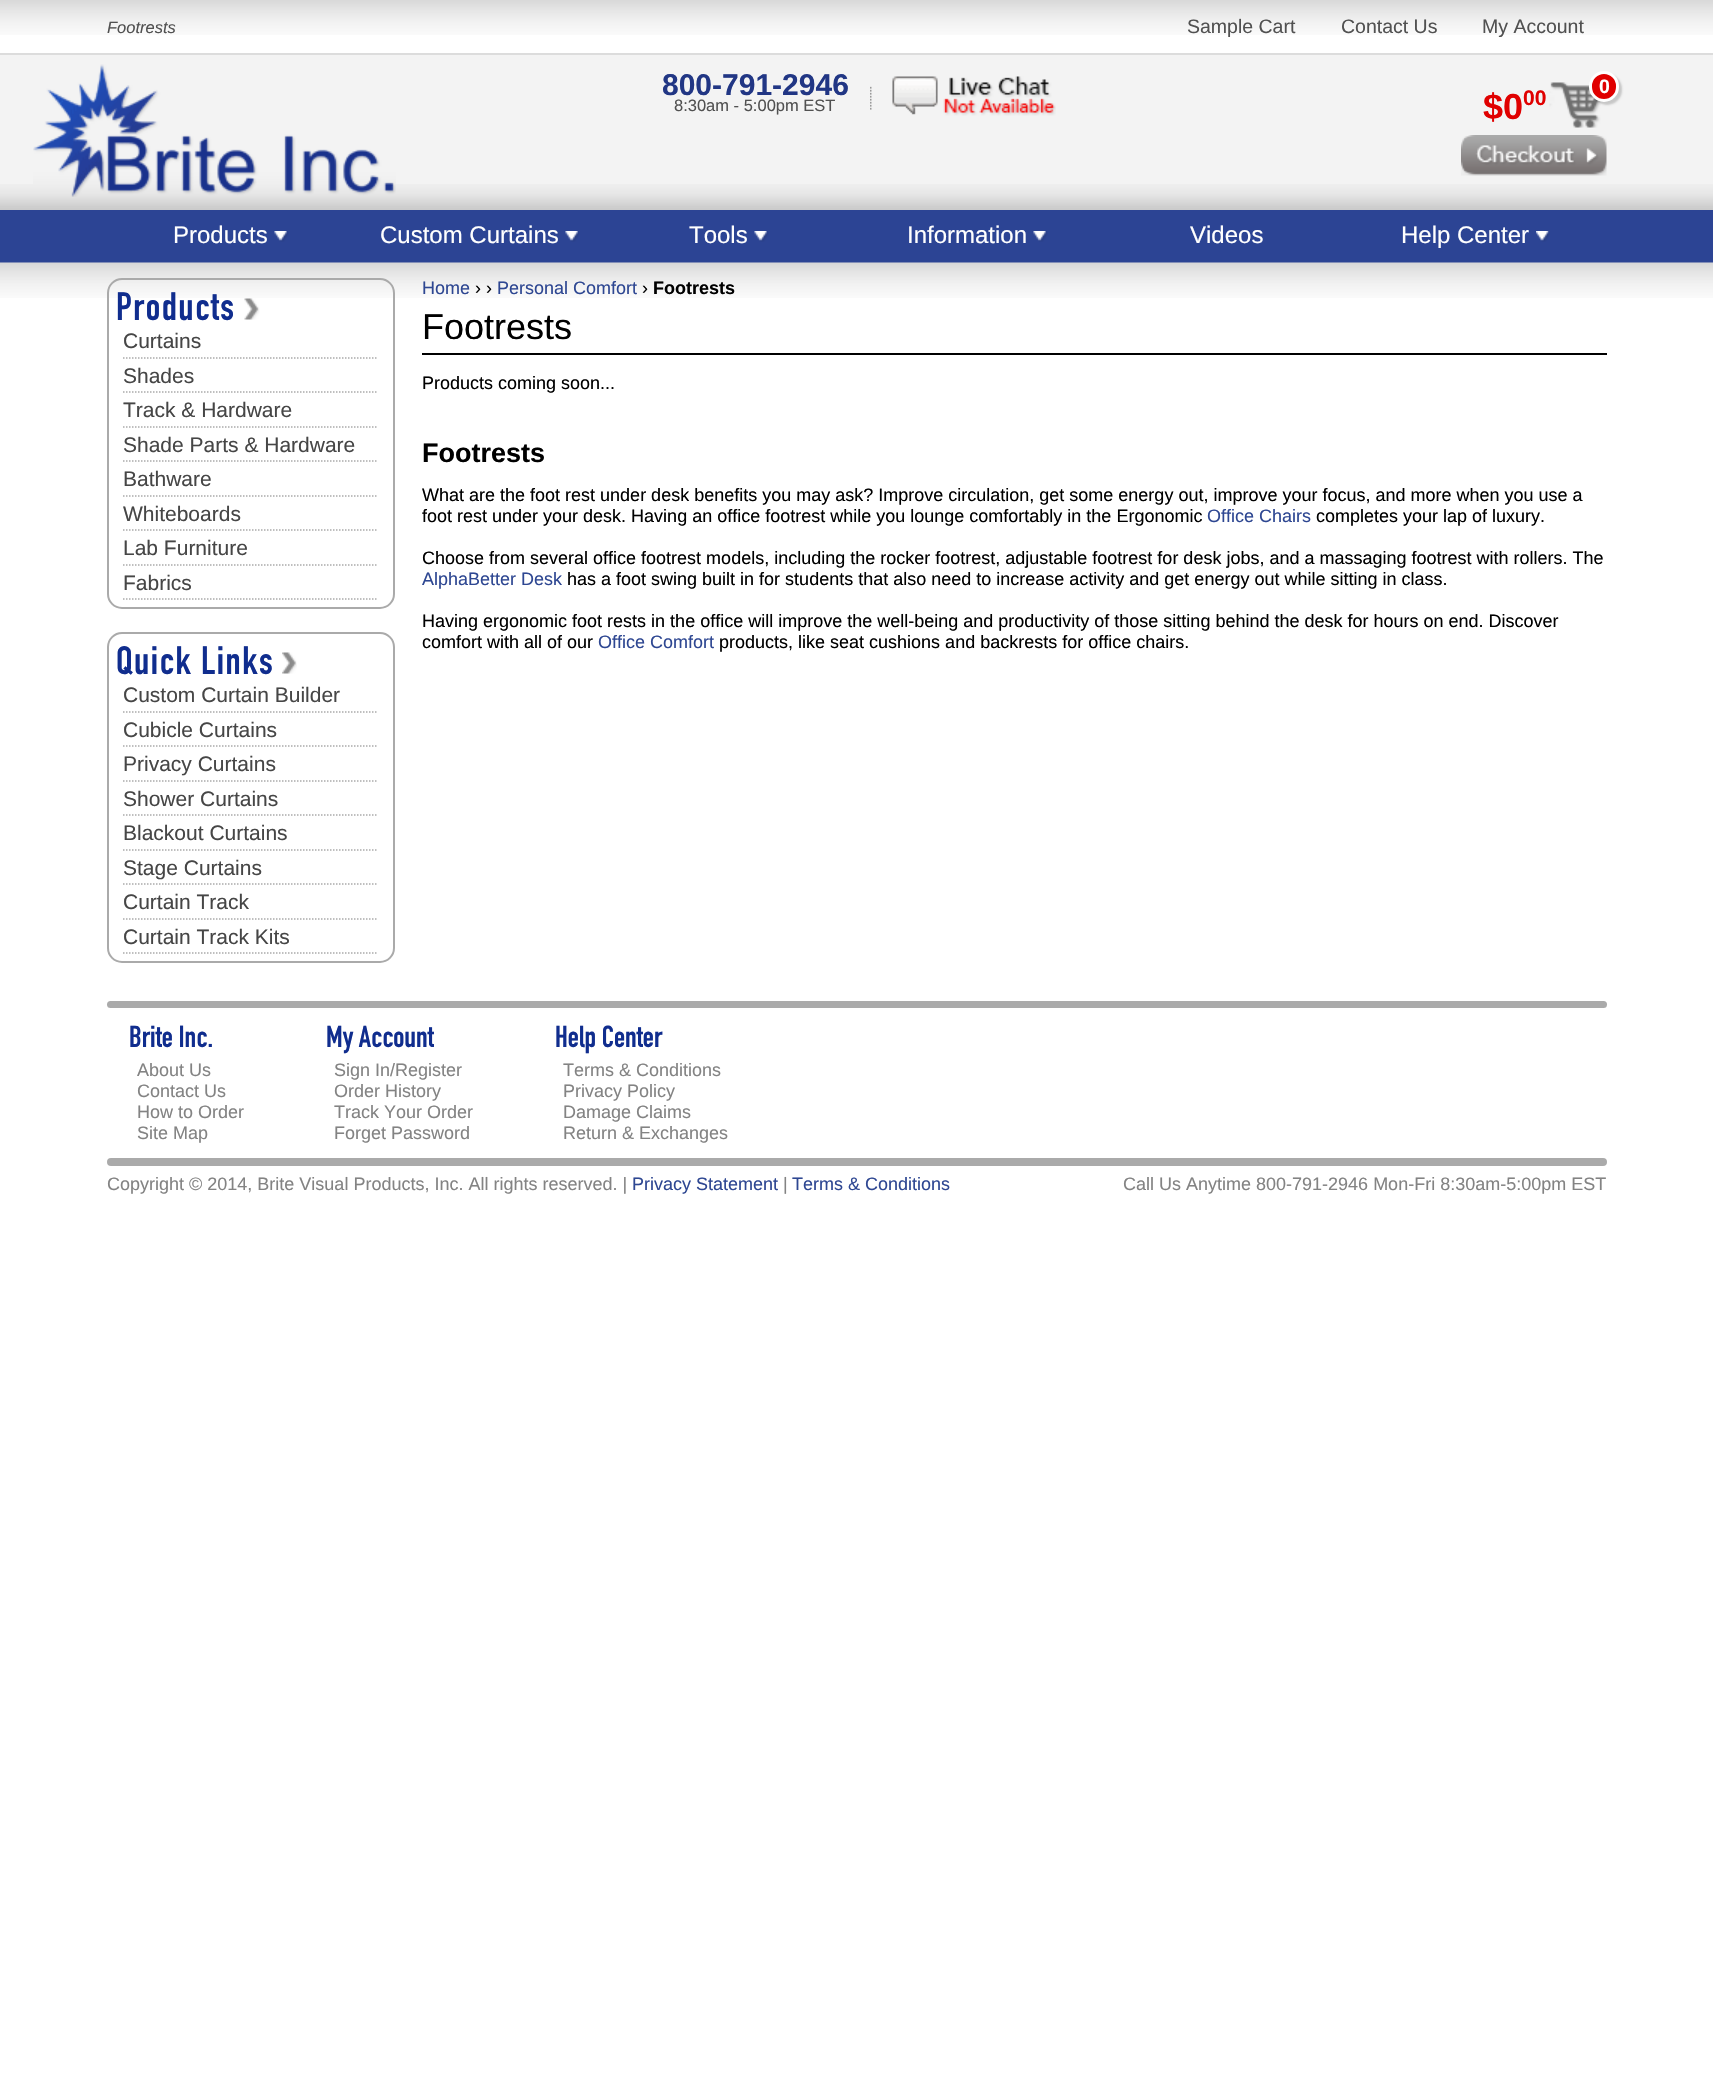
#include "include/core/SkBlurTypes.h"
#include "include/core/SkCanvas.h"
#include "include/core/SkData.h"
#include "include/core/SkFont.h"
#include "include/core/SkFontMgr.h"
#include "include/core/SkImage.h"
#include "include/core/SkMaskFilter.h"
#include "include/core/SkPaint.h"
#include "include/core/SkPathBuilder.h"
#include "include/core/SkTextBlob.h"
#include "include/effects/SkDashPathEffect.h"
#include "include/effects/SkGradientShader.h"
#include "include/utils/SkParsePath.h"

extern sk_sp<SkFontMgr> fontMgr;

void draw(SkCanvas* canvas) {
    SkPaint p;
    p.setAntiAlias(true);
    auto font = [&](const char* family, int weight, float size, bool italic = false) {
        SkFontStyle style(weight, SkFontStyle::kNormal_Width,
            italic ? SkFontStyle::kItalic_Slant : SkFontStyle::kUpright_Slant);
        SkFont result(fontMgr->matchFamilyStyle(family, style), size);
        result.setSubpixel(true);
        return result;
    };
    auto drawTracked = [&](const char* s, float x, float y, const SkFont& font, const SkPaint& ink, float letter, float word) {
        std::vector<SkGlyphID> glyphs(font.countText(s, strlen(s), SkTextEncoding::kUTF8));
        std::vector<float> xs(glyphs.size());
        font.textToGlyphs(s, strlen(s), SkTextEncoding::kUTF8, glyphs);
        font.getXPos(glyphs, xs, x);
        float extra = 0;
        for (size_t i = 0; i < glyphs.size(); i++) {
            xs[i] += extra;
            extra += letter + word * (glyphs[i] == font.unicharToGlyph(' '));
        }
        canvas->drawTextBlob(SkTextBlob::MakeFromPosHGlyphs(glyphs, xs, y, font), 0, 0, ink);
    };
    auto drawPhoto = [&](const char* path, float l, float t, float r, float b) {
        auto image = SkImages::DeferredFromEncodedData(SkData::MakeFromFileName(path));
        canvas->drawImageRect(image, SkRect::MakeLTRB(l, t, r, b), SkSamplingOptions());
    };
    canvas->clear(0xFFFFFFFF);
    drawPhoto("media/1.png", 0, 0, 1713, 35);
    auto font1 = font("Liberation Sans", 400, 16.5f, true);
    p.setColor(0xFF515151);
    canvas->drawString("Footrests", 107, 33, font1, p);
    auto font2 = font("Liberation Sans", 400, 19.5f);
    {
        const struct { const char* s; float x, y; } items[] = {
            {"Sample Cart", 1187, 33},
            {"Contact Us", 1341, 33},
            {"My Account", 1482, 33},
        };
        for (auto [s, x, y] : items) {
            canvas->drawString(s, x, y, font2, p);
        }
    }
    p.setColor(0xFFF3F3F3);
    canvas->drawRect(SkRect::MakeLTRB(0, 55, 1713, 184), p);
    drawPhoto("media/2.png", 0, 184, 1713, 210);
    p.setColor(0xFFDCDCDC);
    canvas->drawRect(SkRect::MakeLTRB(0, 53, 1713, 55), p);
    drawPhoto("media/3.png", 33, 64, 396, 197);
    auto font3 = font("Liberation Sans", 700, 30);
    p.setColor(0xFF213684);
    canvas->drawString("800-791-2946", 662, 95, font3, p);
    auto font4 = font("Liberation Sans", 400, 16.5f);
    p.setColor(0xFF515151);
    canvas->drawString("8:30am - 5:00pm EST", 674, 111, font4, p);
    drawPhoto("media/4.png", 870, 76, 1056, 116);
    drawPhoto("media/5.png", 1549, 82, 1605, 128);
    p.setColor(0x2E000000);
    p.setMaskFilter(SkMaskFilter::MakeBlur(kNormal_SkBlurStyle, 1));
    canvas->drawRoundRect(SkRect::MakeLTRB(1592, 74, 1622, 105), 15, 15, p);
    p.setMaskFilter(nullptr);
    p.setColor(0xFFE00000);
    canvas->drawRoundRect(SkRect::MakeLTRB(1590.5f, 72.5f, 1617.5f, 100.5f), 13.5f, 13.5f, p);
    p.setStyle(SkPaint::kStroke_Style);
    p.setStrokeWidth(3);
    p.setColor(0xFFFFFFFF);
    canvas->drawRoundRect(SkRect::MakeLTRB(1590.5f, 72.5f, 1617.5f, 100.5f), 13.5f, 13.5f, p);
    auto font5 = font("Liberation Sans", 700, 19.5f);
    p.setStyle(SkPaint::kFill_Style);
    canvas->drawString("0", 1599, 93, font5, p);
    auto font6 = font("Liberation Sans", 700, 36);
    p.setColor(0xFFE00000);
    canvas->drawString("$0", 1483, 119, font6, p);
    auto font7 = font("Liberation Sans", 700, 21);
    canvas->drawString("00", 1523, 105, font7, p);
    drawPhoto("media/6.png", 1461, 135, 1607, 176);
    p.setColor(0xFF2C4494);
    canvas->drawRect(SkRect::MakeLTRB(0, 210, 1713, 263), p);
    auto font8 = font("Liberation Sans", 400, 24);
    p.setColor(0xFFFFFFFF);
    canvas->drawString("Products", 173, 243, font8, p);
    drawPhoto("media/7.png", 274, 231, 289, 242);
    canvas->drawString("Custom Curtains", 380, 243, font8, p);
    drawPhoto("media/8.png", 565, 231, 580, 242);
    canvas->drawString("Tools", 689, 243, font8, p);
    drawPhoto("media/9.png", 754, 231, 769, 242);
    canvas->drawString("Information", 907, 243, font8, p);
    drawPhoto("media/7.png", 1033, 231, 1048, 242);
    canvas->drawString("Videos", 1190, 243, font8, p);
    canvas->drawString("Help Center", 1401, 243, font8, p);
    drawPhoto("media/10.png", 1536, 231, 1550, 242);
    drawPhoto("media/11.png", 0, 262, 1713, 298);
    p.setStyle(SkPaint::kStroke_Style);
    p.setStrokeWidth(2);
    p.setColor(0xFFAAAAAA);
    canvas->drawRoundRect(SkRect::MakeLTRB(108, 279, 394, 608), 14, 14, p);
    auto font9 = font("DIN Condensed", 700, 39);
    p.setStyle(SkPaint::kFill_Style);
    p.setColor(0xFF102D8E);
    drawTracked("Products", 116, 320, font9, p, 1.5f, 0);
    drawPhoto("media/12.png", 244, 298, 260, 320);
    p.setStyle(SkPaint::kStroke_Style);
    p.setStrokeWidth(1.5f);
    p.setColor(0xFFAAAAAA);
    p.setPathEffect(SkDashPathEffect::Make({{1.5f, 1.5f}}, 0));
    canvas->drawPath(SkPathBuilder().moveTo(123, 358).lineTo(378, 358).detach(), p);
    p.setPathEffect(nullptr);
    auto font10 = font("Liberation Sans", 400, 21);
    p.setStyle(SkPaint::kFill_Style);
    p.setColor(0xFF464646);
    canvas->drawString("Curtains", 123, 348, font10, p);
    p.setStyle(SkPaint::kStroke_Style);
    p.setColor(0xFFAAAAAA);
    p.setPathEffect(SkDashPathEffect::Make({{1.5f, 1.5f}}, 0));
    canvas->drawPath(SkPathBuilder().moveTo(123, 392).lineTo(378, 392).detach(), p);
    p.setPathEffect(nullptr);
    p.setStyle(SkPaint::kFill_Style);
    p.setColor(0xFF464646);
    canvas->drawString("Shades", 123, 383, font10, p);
    p.setStyle(SkPaint::kStroke_Style);
    p.setColor(0xFFAAAAAA);
    p.setPathEffect(SkDashPathEffect::Make({{1.5f, 1.5f}}, 0));
    canvas->drawPath(SkPathBuilder().moveTo(123, 427).lineTo(378, 427).detach(), p);
    p.setPathEffect(nullptr);
    p.setStyle(SkPaint::kFill_Style);
    p.setColor(0xFF464646);
    canvas->drawString("Track & Hardware", 123, 417, font10, p);
    p.setStyle(SkPaint::kStroke_Style);
    p.setColor(0xFFAAAAAA);
    p.setPathEffect(SkDashPathEffect::Make({{1.5f, 1.5f}}, 0));
    canvas->drawPath(SkPathBuilder().moveTo(123, 461).lineTo(378, 461).detach(), p);
    p.setPathEffect(nullptr);
    p.setStyle(SkPaint::kFill_Style);
    p.setColor(0xFF464646);
    canvas->drawString("Shade Parts & Hardware", 123, 452, font10, p);
    p.setStyle(SkPaint::kStroke_Style);
    p.setColor(0xFFAAAAAA);
    p.setPathEffect(SkDashPathEffect::Make({{1.5f, 1.5f}}, 0));
    canvas->drawPath(SkPathBuilder().moveTo(123, 496).lineTo(378, 496).detach(), p);
    p.setPathEffect(nullptr);
    p.setStyle(SkPaint::kFill_Style);
    p.setColor(0xFF464646);
    canvas->drawString("Bathware", 123, 486, font10, p);
    p.setStyle(SkPaint::kStroke_Style);
    p.setColor(0xFFAAAAAA);
    p.setPathEffect(SkDashPathEffect::Make({{1.5f, 1.5f}}, 0));
    canvas->drawPath(SkPathBuilder().moveTo(123, 530).lineTo(378, 530).detach(), p);
    p.setPathEffect(nullptr);
    p.setStyle(SkPaint::kFill_Style);
    p.setColor(0xFF464646);
    canvas->drawString("Whiteboards", 123, 521, font10, p);
    p.setStyle(SkPaint::kStroke_Style);
    p.setColor(0xFFAAAAAA);
    p.setPathEffect(SkDashPathEffect::Make({{1.5f, 1.5f}}, 0));
    canvas->drawPath(SkPathBuilder().moveTo(123, 565).lineTo(378, 565).detach(), p);
    p.setPathEffect(nullptr);
    p.setStyle(SkPaint::kFill_Style);
    p.setColor(0xFF464646);
    canvas->drawString("Lab Furniture", 123, 555, font10, p);
    p.setStyle(SkPaint::kStroke_Style);
    p.setColor(0xFFAAAAAA);
    p.setPathEffect(SkDashPathEffect::Make({{1.5f, 1.5f}}, 0));
    canvas->drawPath(SkPathBuilder().moveTo(123, 599).lineTo(378, 599).detach(), p);
    p.setPathEffect(nullptr);
    p.setStyle(SkPaint::kFill_Style);
    p.setColor(0xFF464646);
    canvas->drawString("Fabrics", 123, 590, font10, p);
    p.setStyle(SkPaint::kStroke_Style);
    p.setStrokeWidth(2);
    p.setColor(0xFFAAAAAA);
    canvas->drawRoundRect(SkRect::MakeLTRB(108, 633, 394, 962), 14, 14, p);
    p.setStyle(SkPaint::kFill_Style);
    p.setColor(0xFF102D8E);
    drawTracked("Quick Links", 116, 674, font9, p, 1.5f, 0);
    drawPhoto("media/13.png", 282, 652, 297, 674);
    p.setStyle(SkPaint::kStroke_Style);
    p.setStrokeWidth(1.5f);
    p.setColor(0xFFAAAAAA);
    p.setPathEffect(SkDashPathEffect::Make({{1.5f, 1.5f}}, 0));
    canvas->drawPath(SkPathBuilder().moveTo(123, 712).lineTo(378, 712).detach(), p);
    p.setPathEffect(nullptr);
    p.setStyle(SkPaint::kFill_Style);
    p.setColor(0xFF464646);
    canvas->drawString("Custom Curtain Builder", 123, 702, font10, p);
    p.setStyle(SkPaint::kStroke_Style);
    p.setColor(0xFFAAAAAA);
    p.setPathEffect(SkDashPathEffect::Make({{1.5f, 1.5f}}, 0));
    canvas->drawPath(SkPathBuilder().moveTo(123, 746).lineTo(378, 746).detach(), p);
    p.setPathEffect(nullptr);
    p.setStyle(SkPaint::kFill_Style);
    p.setColor(0xFF464646);
    canvas->drawString("Cubicle Curtains", 123, 737, font10, p);
    p.setStyle(SkPaint::kStroke_Style);
    p.setColor(0xFFAAAAAA);
    p.setPathEffect(SkDashPathEffect::Make({{1.5f, 1.5f}}, 0));
    canvas->drawPath(SkPathBuilder().moveTo(123, 781).lineTo(378, 781).detach(), p);
    p.setPathEffect(nullptr);
    p.setStyle(SkPaint::kFill_Style);
    p.setColor(0xFF464646);
    canvas->drawString("Privacy Curtains", 123, 771, font10, p);
    p.setStyle(SkPaint::kStroke_Style);
    p.setColor(0xFFAAAAAA);
    p.setPathEffect(SkDashPathEffect::Make({{1.5f, 1.5f}}, 0));
    canvas->drawPath(SkPathBuilder().moveTo(123, 815).lineTo(378, 815).detach(), p);
    p.setPathEffect(nullptr);
    p.setStyle(SkPaint::kFill_Style);
    p.setColor(0xFF464646);
    canvas->drawString("Shower Curtains", 123, 806, font10, p);
    p.setStyle(SkPaint::kStroke_Style);
    p.setColor(0xFFAAAAAA);
    p.setPathEffect(SkDashPathEffect::Make({{1.5f, 1.5f}}, 0));
    canvas->drawPath(SkPathBuilder().moveTo(123, 850).lineTo(378, 850).detach(), p);
    p.setPathEffect(nullptr);
    p.setStyle(SkPaint::kFill_Style);
    p.setColor(0xFF464646);
    canvas->drawString("Blackout Curtains", 123, 840, font10, p);
    p.setStyle(SkPaint::kStroke_Style);
    p.setColor(0xFFAAAAAA);
    p.setPathEffect(SkDashPathEffect::Make({{1.5f, 1.5f}}, 0));
    canvas->drawPath(SkPathBuilder().moveTo(123, 884).lineTo(378, 884).detach(), p);
    p.setPathEffect(nullptr);
    p.setStyle(SkPaint::kFill_Style);
    p.setColor(0xFF464646);
    canvas->drawString("Stage Curtains", 123, 875, font10, p);
    p.setStyle(SkPaint::kStroke_Style);
    p.setColor(0xFFAAAAAA);
    p.setPathEffect(SkDashPathEffect::Make({{1.5f, 1.5f}}, 0));
    canvas->drawPath(SkPathBuilder().moveTo(123, 919).lineTo(378, 919).detach(), p);
    p.setPathEffect(nullptr);
    p.setStyle(SkPaint::kFill_Style);
    p.setColor(0xFF464646);
    canvas->drawString("Curtain Track", 123, 909, font10, p);
    p.setStyle(SkPaint::kStroke_Style);
    p.setColor(0xFFAAAAAA);
    p.setPathEffect(SkDashPathEffect::Make({{1.5f, 1.5f}}, 0));
    canvas->drawPath(SkPathBuilder().moveTo(123, 953).lineTo(378, 953).detach(), p);
    p.setPathEffect(nullptr);
    p.setStyle(SkPaint::kFill_Style);
    p.setColor(0xFF464646);
    canvas->drawString("Curtain Track Kits", 123, 944, font10, p);
    auto font11 = font("Liberation Sans", 400, 18);
    p.setColor(0xFF2E4792);
    canvas->drawString("Home", 422, 294, font11, p);
    p.setColor(0xFF000000);
    canvas->drawString("› ›", 475, 294, font11, p);
    p.setColor(0xFF2E4792);
    canvas->drawString("Personal Comfort", 497, 294, font11, p);
    p.setColor(0xFF000000);
    canvas->drawString("›", 642, 294, font11, p);
    auto font12 = font("Liberation Sans", 700, 18);
    canvas->drawString("Footrests", 653, 294, font12, p);
    canvas->drawRect(SkRect::MakeLTRB(422, 353, 1607, 355), p);
    auto font13 = font("Liberation Sans", 400, 36);
    canvas->drawString("Footrests", 422, 339, font13, p);
    canvas->drawString("Products coming soon...", 422, 389, font11, p);
    auto font14 = font("Liberation Sans", 700, 27);
    canvas->drawString("Footrests", 422, 462, font14, p);
    canvas->drawString("What are the foot rest under desk benefits you may ask? Improve circulation, get some energy out, improve your focus, and more when you use a", 422, 501, font11, p);
    canvas->drawString("foot rest under your desk. Having an office footrest while you lounge comfortably in the Ergonomic", 422, 522, font11, p);
    p.setColor(0xFF2E4792);
    canvas->drawString("Office Chairs", 1207, 522, font11, p);
    p.setColor(0xFF000000);
    canvas->drawString("completes your lap of luxury.", 1316, 522, font11, p);
    canvas->drawString("Choose from several office footrest models, including the rocker footrest, adjustable footrest for desk jobs, and a massaging footrest with rollers. The", 422, 564, font11, p);
    p.setColor(0xFF2E4792);
    canvas->drawString("AlphaBetter Desk", 422, 585, font11, p);
    p.setColor(0xFF000000);
    {
        const struct { const char* s; float x, y; } items[] = {
            {"has a foot swing built in for students that also need to increase activity and get energy out while sitting in class.", 567, 585},
            {"Having ergonomic foot rests in the office will improve the well-being and productivity of those sitting behind the desk for hours on end. Discover", 422, 627},
            {"comfort with all of our", 422, 648},
        };
        for (auto [s, x, y] : items) {
            canvas->drawString(s, x, y, font11, p);
        }
    }
    p.setColor(0xFF2E4792);
    canvas->drawString("Office Comfort", 598, 648, font11, p);
    p.setColor(0xFF000000);
    canvas->drawString("products, like seat cushions and backrests for office chairs.", 719, 648, font11, p);
    p.setColor(0xFFAAAAAA);
    canvas->drawRoundRect(SkRect::MakeLTRB(107, 1001, 1607, 1008), 3.5f, 3.5f, p);
    auto font15 = font("DIN Condensed", 700, 30);
    p.setColor(0xFF102D8E);
    canvas->drawString("Brite Inc.", 129, 1047, font15, p);
    p.setColor(0xFF838383);
    {
        const struct { const char* s; float x, y; } items[] = {
            {"About Us", 137, 1076},
            {"Contact Us", 137, 1097},
            {"How to Order", 137, 1118},
            {"Site Map", 137, 1139},
        };
        for (auto [s, x, y] : items) {
            canvas->drawString(s, x, y, font11, p);
        }
    }
    p.setColor(0xFF102D8E);
    canvas->drawString("My Account", 326, 1047, font15, p);
    p.setColor(0xFF838383);
    {
        const struct { const char* s; float x, y; } items[] = {
            {"Sign In/Register", 334, 1076},
            {"Order History", 334, 1097},
            {"Track Your Order", 334, 1118},
            {"Forget Password", 334, 1139},
        };
        for (auto [s, x, y] : items) {
            canvas->drawString(s, x, y, font11, p);
        }
    }
    p.setColor(0xFF102D8E);
    canvas->drawString("Help Center", 555, 1047, font15, p);
    p.setColor(0xFF838383);
    {
        const struct { const char* s; float x, y; } items[] = {
            {"Terms & Conditions", 563, 1076},
            {"Privacy Policy", 563, 1097},
            {"Damage Claims", 563, 1118},
            {"Return & Exchanges", 563, 1139},
        };
        for (auto [s, x, y] : items) {
            canvas->drawString(s, x, y, font11, p);
        }
    }
    p.setColor(0xFFAAAAAA);
    canvas->drawRoundRect(SkRect::MakeLTRB(107, 1158, 1607, 1166), 4, 4, p);
    p.setColor(0xFF838383);
    canvas->drawString("Copyright © 2014, Brite Visual Products, Inc. All rights reserved. |", 107, 1190, font11, p);
    p.setColor(0xFF2E4792);
    canvas->drawString("Privacy Statement", 632, 1190, font11, p);
    p.setColor(0xFF838383);
    canvas->drawString("|", 783, 1190, font11, p);
    p.setColor(0xFF2E4792);
    canvas->drawString("Terms & Conditions", 792, 1190, font11, p);
    p.setColor(0xFF838383);
    canvas->drawString("Call Us Anytime 800-791-2946 Mon-Fri 8:30am-5:00pm EST", 1123, 1190, font11, p);
}
